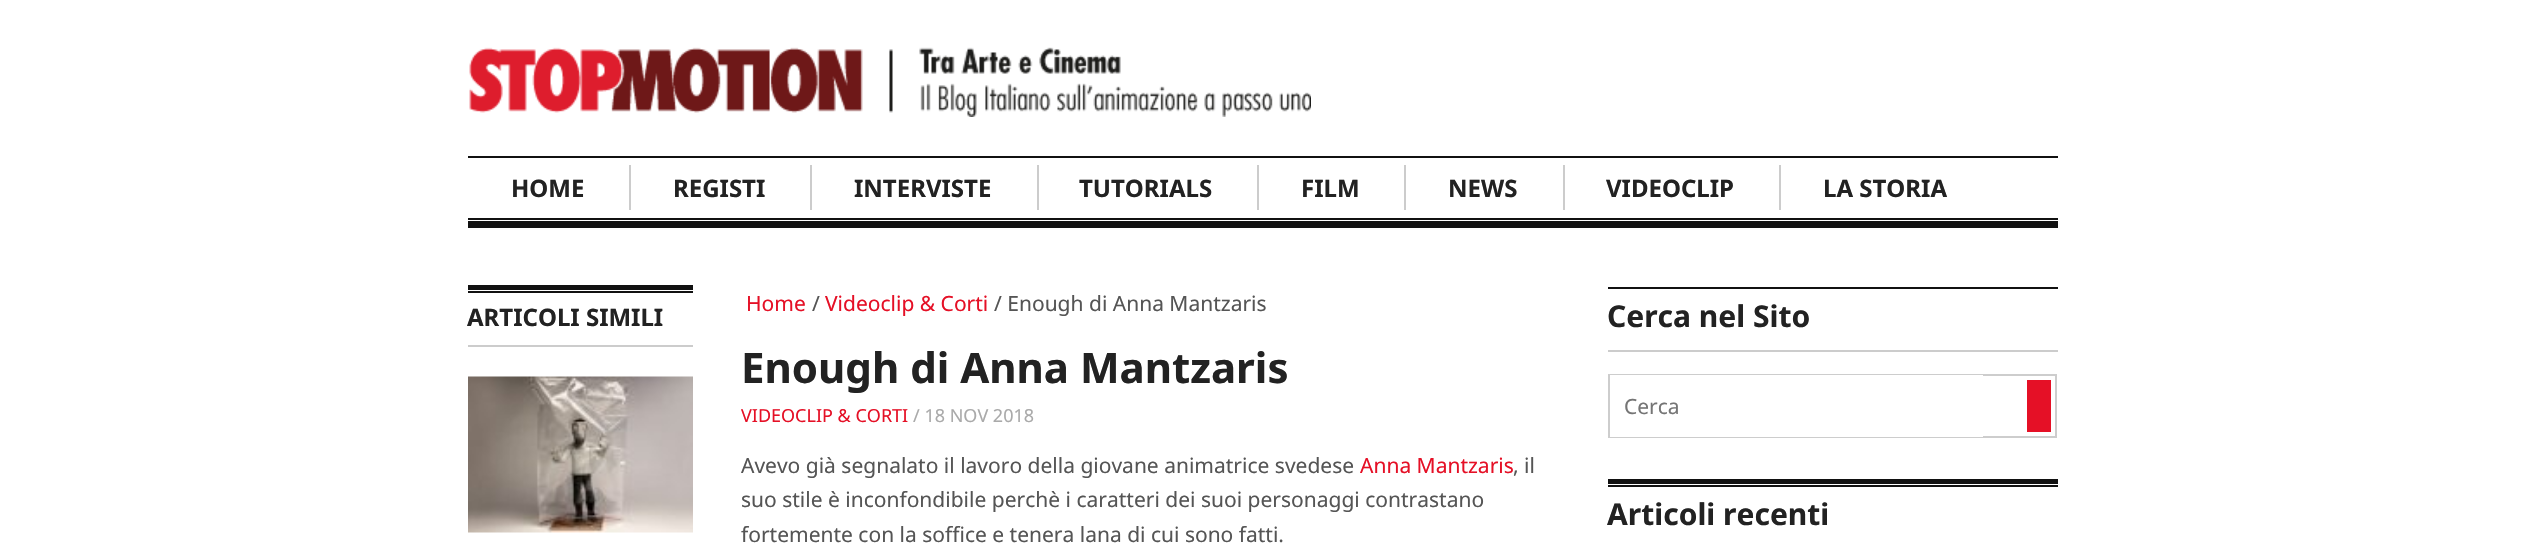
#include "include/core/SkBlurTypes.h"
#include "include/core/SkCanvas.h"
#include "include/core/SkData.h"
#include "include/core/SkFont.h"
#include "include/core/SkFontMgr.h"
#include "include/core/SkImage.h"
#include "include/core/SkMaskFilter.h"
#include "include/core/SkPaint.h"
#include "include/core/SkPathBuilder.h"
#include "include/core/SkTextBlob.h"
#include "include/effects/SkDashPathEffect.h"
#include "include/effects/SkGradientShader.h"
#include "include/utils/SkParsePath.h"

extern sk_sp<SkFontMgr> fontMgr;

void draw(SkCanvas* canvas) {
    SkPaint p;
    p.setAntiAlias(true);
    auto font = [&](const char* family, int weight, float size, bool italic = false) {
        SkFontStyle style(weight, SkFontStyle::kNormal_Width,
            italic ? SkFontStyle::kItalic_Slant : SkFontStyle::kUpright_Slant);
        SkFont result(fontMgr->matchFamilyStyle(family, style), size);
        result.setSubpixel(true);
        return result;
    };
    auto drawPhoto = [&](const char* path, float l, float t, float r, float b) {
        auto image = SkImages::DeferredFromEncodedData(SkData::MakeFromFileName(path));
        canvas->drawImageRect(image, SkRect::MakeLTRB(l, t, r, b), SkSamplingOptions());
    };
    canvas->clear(0xFFFFFFFF);
    drawPhoto("media/1.png", 469, 47, 1311, 117);
    {
        const struct { float l, t, r, b; SkColor color; } items[] = {
            {468, 221, 2058, 228, 0xFF111111},
            {468, 156, 2058, 158, 0xFF111111},
            {468, 218, 2058, 220, 0xFF111111},
        };
        for (auto [l, t, r, b, color] : items) {
            p.setColor(color);
            canvas->drawRect(SkRect::MakeLTRB(l, t, r, b), p);
        }
    }
    auto font1 = font("Noto Sans", 700, 24);
    p.setColor(0xFF222222);
    canvas->drawString("HOME", 511, 197, font1, p);
    p.setColor(0xFFCCCCCC);
    canvas->drawRect(SkRect::MakeLTRB(629, 165, 631, 210), p);
    p.setColor(0xFF222222);
    canvas->drawString("REGISTI", 673, 197, font1, p);
    p.setColor(0xFFCCCCCC);
    canvas->drawRect(SkRect::MakeLTRB(810, 165, 812, 210), p);
    p.setColor(0xFF222222);
    canvas->drawString("INTERVISTE", 854, 197, font1, p);
    p.setColor(0xFFCCCCCC);
    canvas->drawRect(SkRect::MakeLTRB(1037, 165, 1039, 210), p);
    p.setColor(0xFF222222);
    canvas->drawString("TUTORIALS", 1079, 197, font1, p);
    p.setColor(0xFFCCCCCC);
    canvas->drawRect(SkRect::MakeLTRB(1257, 165, 1259, 210), p);
    p.setColor(0xFF222222);
    canvas->drawString("FILM", 1301, 197, font1, p);
    p.setColor(0xFFCCCCCC);
    canvas->drawRect(SkRect::MakeLTRB(1404, 165, 1406, 210), p);
    p.setColor(0xFF222222);
    canvas->drawString("NEWS", 1448, 197, font1, p);
    p.setColor(0xFFCCCCCC);
    canvas->drawRect(SkRect::MakeLTRB(1563, 165, 1565, 210), p);
    p.setColor(0xFF222222);
    canvas->drawString("VIDEOCLIP", 1606, 197, font1, p);
    p.setColor(0xFFCCCCCC);
    canvas->drawRect(SkRect::MakeLTRB(1779, 165, 1781, 210), p);
    p.setColor(0xFF222222);
    canvas->drawString("LA STORIA", 1823, 197, font1, p);
    {
        const struct { float l, t, r, b; SkColor color; } items[] = {
            {468, 285, 693, 290, 0xFF111111},
            {468, 291, 693, 293, 0xFF111111},
            {468, 345, 693, 347, 0xFFCCCCCC},
        };
        for (auto [l, t, r, b, color] : items) {
            p.setColor(color);
            canvas->drawRect(SkRect::MakeLTRB(l, t, r, b), p);
        }
    }
    p.setColor(0xFF222222);
    canvas->drawString("ARTICOLI SIMILI", 467, 326, font1, p);
    drawPhoto("media/2.png", 468, 376, 693, 533);
    auto font2 = font("Noto Sans", 400, 21);
    p.setColor(0xFFE51026);
    canvas->drawString("Home", 746, 311, font2, p);
    p.setColor(0xFF555555);
    canvas->drawString("/", 812, 311, font2, p);
    p.setColor(0xFFE51026);
    canvas->drawString("Videoclip & Corti", 825, 311, font2, p);
    p.setColor(0xFF555555);
    canvas->drawString("/ Enough di Anna Mantzaris", 994, 311, font2, p);
    auto font3 = font("Noto Sans", 700, 42);
    p.setColor(0xFF222222);
    canvas->drawString("Enough di Anna Mantzaris", 741, 383, font3, p);
    auto font4 = font("Noto Sans", 400, 18);
    p.setColor(0xFFE51026);
    canvas->drawString("VIDEOCLIP & CORTI", 741, 422, font4, p);
    p.setColor(0xFFAAAAAA);
    canvas->drawString("/ 18 NOV 2018", 913, 422, font4, p);
    p.setColor(0xFF555555);
    canvas->drawString("Avevo già segnalato il lavoro della giovane animatrice svedese", 741, 473, font2, p);
    p.setColor(0xFFE51026);
    canvas->drawString("Anna Mantzaris", 1360, 473, font2, p);
    p.setColor(0xFF555555);
    {
        const struct { const char* s; float x, y; } items[] = {
            {", il", 1513, 473},
            {"suo stile è inconfondibile perchè i caratteri dei suoi personaggi contrastano", 741, 507},
            {"fortemente con la soffice e tenera lana di cui sono fatti.", 741, 542},
        };
        for (auto [s, x, y] : items) {
            canvas->drawString(s, x, y, font2, p);
        }
    }
    p.setColor(0xFF111111);
    canvas->drawRect(SkRect::MakeLTRB(1608, 287, 2058, 289), p);
    p.setColor(0xFFCCCCCC);
    canvas->drawRect(SkRect::MakeLTRB(1608, 350, 2058, 352), p);
    auto font5 = font("Noto Sans", 700, 30);
    p.setColor(0xFF222222);
    canvas->drawString("Cerca nel Sito", 1607, 327, font5, p);
    p.setStyle(SkPaint::kStroke_Style);
    p.setStrokeWidth(2);
    p.setColor(0xFFCDCDCD);
    canvas->drawRect(SkRect::MakeLTRB(1609, 375, 2056, 437), p);
    p.setStyle(SkPaint::kFill_Style);
    p.setColor(0xFFFFFFFF);
    canvas->drawRect(SkRect::MakeLTRB(1610, 375, 1983, 437), p);
    p.setColor(0xFF757575);
    canvas->drawString("Cerca", 1624, 414, font2, p);
    {
        const struct { float l, t, r, b; SkColor color; } items[] = {
            {2027, 380, 2051, 432, 0xFFE51026},
            {1608, 479, 2058, 484, 0xFF111111},
            {1608, 485, 2058, 487, 0xFF111111},
        };
        for (auto [l, t, r, b, color] : items) {
            p.setColor(color);
            canvas->drawRect(SkRect::MakeLTRB(l, t, r, b), p);
        }
    }
    p.setColor(0xFF222222);
    canvas->drawString("Articoli recenti", 1607, 525, font5, p);
}
